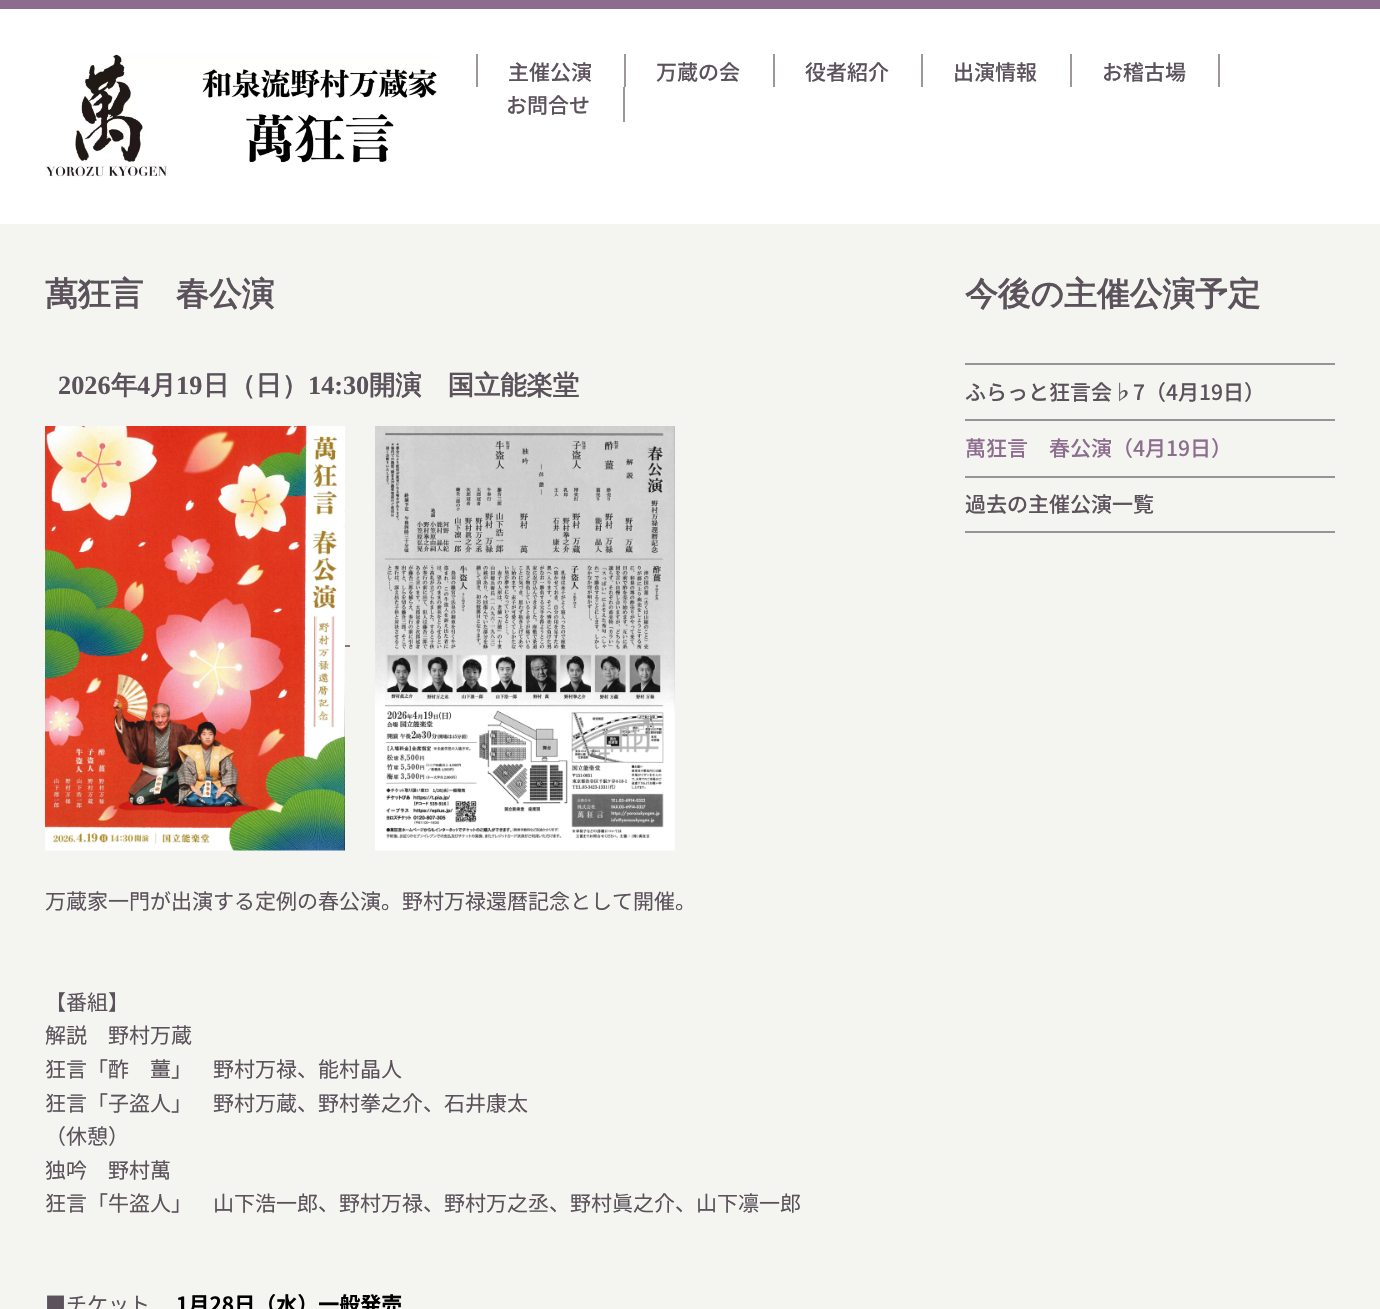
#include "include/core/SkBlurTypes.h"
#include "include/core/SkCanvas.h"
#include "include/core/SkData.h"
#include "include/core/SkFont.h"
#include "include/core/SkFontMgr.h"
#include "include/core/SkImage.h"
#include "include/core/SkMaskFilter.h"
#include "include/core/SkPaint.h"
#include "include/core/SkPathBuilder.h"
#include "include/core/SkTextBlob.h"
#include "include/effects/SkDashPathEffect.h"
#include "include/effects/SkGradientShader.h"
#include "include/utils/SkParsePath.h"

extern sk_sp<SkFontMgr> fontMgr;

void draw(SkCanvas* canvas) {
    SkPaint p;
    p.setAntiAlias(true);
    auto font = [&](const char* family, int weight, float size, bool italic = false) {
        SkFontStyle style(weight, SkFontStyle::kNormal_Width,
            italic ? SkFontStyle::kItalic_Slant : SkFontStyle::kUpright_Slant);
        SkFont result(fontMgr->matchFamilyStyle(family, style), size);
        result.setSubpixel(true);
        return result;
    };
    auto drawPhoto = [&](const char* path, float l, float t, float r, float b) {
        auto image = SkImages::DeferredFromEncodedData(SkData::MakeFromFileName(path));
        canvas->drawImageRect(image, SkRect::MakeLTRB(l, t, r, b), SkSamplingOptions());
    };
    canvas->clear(0xFFF4F5F0);
    p.setColor(0xFF8D6D8E);
    canvas->drawRect(SkRect::MakeLTRB(0, 0, 1380, 9), p);
    p.setColor(0xFFFFFFFF);
    canvas->drawRect(SkRect::MakeLTRB(0, 9, 1380, 224), p);
    drawPhoto("media/1.png", 45, 54, 437, 177);
    p.setColor(0xFF9D979D);
    canvas->drawRect(SkRect::MakeLTRB(624, 54, 626, 87), p);
    canvas->drawRect(SkRect::MakeLTRB(476, 54, 478, 87), p);
    auto font1 = font("Noto Sans JP", 500, 21);
    p.setColor(0xFF5B525C);
    canvas->drawString("主催公演", 508, 80, font1, p);
    p.setColor(0xFF9D979D);
    canvas->drawRect(SkRect::MakeLTRB(773, 54, 775, 87), p);
    p.setColor(0xFF5B525C);
    canvas->drawString("万蔵の会", 656, 80, font1, p);
    p.setColor(0xFF9D979D);
    canvas->drawRect(SkRect::MakeLTRB(921, 54, 923, 87), p);
    p.setColor(0xFF5B525C);
    canvas->drawString("役者紹介", 805, 80, font1, p);
    p.setColor(0xFF9D979D);
    canvas->drawRect(SkRect::MakeLTRB(1070, 54, 1072, 87), p);
    p.setColor(0xFF5B525C);
    canvas->drawString("出演情報", 953, 80, font1, p);
    p.setColor(0xFF9D979D);
    canvas->drawRect(SkRect::MakeLTRB(1218, 54, 1220, 87), p);
    p.setColor(0xFF5B525C);
    canvas->drawString("お稽古場", 1102, 80, font1, p);
    p.setColor(0xFF9D979D);
    canvas->drawRect(SkRect::MakeLTRB(623, 87, 625, 122), p);
    p.setColor(0xFF5B525C);
    canvas->drawString("お問合せ", 506, 113, font1, p);
    auto font2 = font("WenQuanYi Zen Hei", 700, 32.75f);
    canvas->drawString("萬狂言　春公演", 45, 305, font2, p);
    auto font3 = font("Liberation Serif", 700, 26.25f);
    canvas->drawString("2026", 58, 394, font3, p);
    auto font4 = font("WenQuanYi Zen Hei", 700, 26.25f);
    canvas->drawString("年", 111, 394, font4, p);
    canvas->drawString("4", 137, 394, font3, p);
    canvas->drawString("月", 150, 394, font4, p);
    canvas->drawString("19", 176, 394, font3, p);
    canvas->drawString("日（日）", 203, 394, font4, p);
    canvas->drawString("14:30", 308, 394, font3, p);
    canvas->drawString("開演　国立能楽堂", 369, 394, font4, p);
    drawPhoto("media/2.png", 45, 426, 345, 851);
    p.setColor(0xFF8D6D8E);
    canvas->drawRect(SkRect::MakeLTRB(345, 645, 350, 647), p);
    drawPhoto("media/3.png", 375, 426, 675, 851);
    auto font5 = font("Noto Sans JP", 400, 21);
    p.setColor(0xFF5B525C);
    {
        const struct { const char* s; float x, y; } items[] = {
            {"万蔵家一門が出演する定例の春公演。野村万禄還暦記念として開催。", 45, 909},
            {"【番組】", 45, 1010},
            {"解説　野村万蔵", 45, 1043},
            {"狂言「酢　薑」　野村万禄、能村晶人", 45, 1077},
            {"狂言「子盗人」　野村万蔵、野村拳之介、石井康太", 45, 1111},
            {"（休憩）", 45, 1144},
            {"独吟　野村萬", 45, 1178},
            {"狂言「牛盗人」　山下浩一郎、野村万禄、野村万之丞、野村眞之介、山下凛一郎", 45, 1211},
            {"■チケット", 45, 1312},
        };
        for (auto [s, x, y] : items) {
            canvas->drawString(s, x, y, font5, p);
        }
    }
    auto font6 = font("Noto Sans JP", 700, 21);
    p.setColor(0xFF000000);
    canvas->drawString("1月28日（水）一般発売", 176, 1312, font6, p);
    p.setColor(0xFF5B525C);
    canvas->drawString("今後の主催公演予定", 965, 305, font2, p);
    p.setColor(0xFF989397);
    canvas->drawRect(SkRect::MakeLTRB(965, 531, 1335, 533), p);
    canvas->drawRect(SkRect::MakeLTRB(965, 363, 1335, 365), p);
    p.setColor(0xFF5B525C);
    canvas->drawString("ふらっと狂言会♭7（4月19日）", 965, 400, font1, p);
    p.setColor(0xFF989397);
    canvas->drawRect(SkRect::MakeLTRB(965, 419, 1335, 421), p);
    p.setColor(0xFF8D6D8E);
    canvas->drawString("萬狂言　春公演（4月19日）", 965, 456, font1, p);
    p.setColor(0xFF989397);
    canvas->drawRect(SkRect::MakeLTRB(965, 476, 1335, 478), p);
    p.setColor(0xFF5B525C);
    canvas->drawString("過去の主催公演一覧", 965, 512, font1, p);
}
